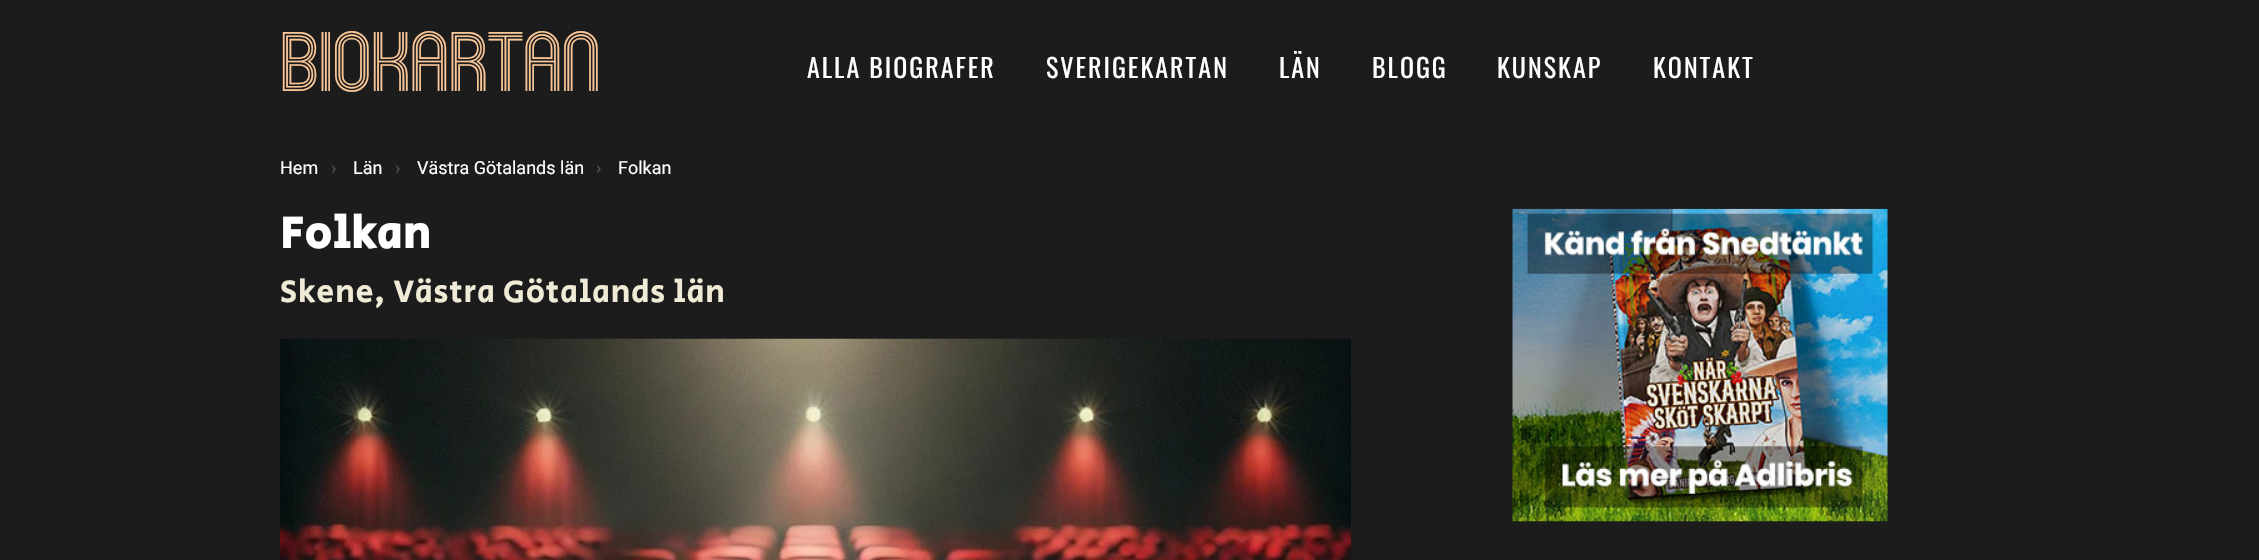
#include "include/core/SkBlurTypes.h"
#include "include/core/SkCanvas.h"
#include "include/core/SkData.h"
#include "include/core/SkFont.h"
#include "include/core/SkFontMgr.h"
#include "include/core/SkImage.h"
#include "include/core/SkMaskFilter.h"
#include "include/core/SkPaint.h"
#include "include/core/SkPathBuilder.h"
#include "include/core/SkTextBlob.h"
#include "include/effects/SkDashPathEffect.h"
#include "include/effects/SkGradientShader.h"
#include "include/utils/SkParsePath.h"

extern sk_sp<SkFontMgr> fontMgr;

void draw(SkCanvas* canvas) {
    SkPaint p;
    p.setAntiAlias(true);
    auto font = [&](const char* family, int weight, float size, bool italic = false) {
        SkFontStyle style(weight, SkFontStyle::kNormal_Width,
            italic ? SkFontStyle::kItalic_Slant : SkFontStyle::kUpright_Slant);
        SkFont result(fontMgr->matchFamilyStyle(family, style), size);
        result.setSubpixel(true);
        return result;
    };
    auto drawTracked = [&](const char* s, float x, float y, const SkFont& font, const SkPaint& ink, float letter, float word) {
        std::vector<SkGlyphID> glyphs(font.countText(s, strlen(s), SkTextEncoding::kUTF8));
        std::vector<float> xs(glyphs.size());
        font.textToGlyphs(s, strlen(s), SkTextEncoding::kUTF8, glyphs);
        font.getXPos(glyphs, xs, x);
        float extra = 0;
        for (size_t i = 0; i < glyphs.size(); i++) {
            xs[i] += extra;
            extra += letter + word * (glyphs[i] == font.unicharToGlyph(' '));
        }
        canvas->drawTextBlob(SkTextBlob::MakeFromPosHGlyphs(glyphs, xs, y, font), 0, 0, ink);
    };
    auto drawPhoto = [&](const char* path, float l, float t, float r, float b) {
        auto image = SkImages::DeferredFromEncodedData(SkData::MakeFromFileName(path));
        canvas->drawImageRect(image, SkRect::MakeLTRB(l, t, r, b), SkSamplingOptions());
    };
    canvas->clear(0xFF1C1C1C);
    auto font1 = font("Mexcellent", 400, 74);
    p.setColor(0xFFF9C697);
    canvas->drawString("Biokartan", 280, 91, font1, p);
    auto font2 = font("Oswald", 400, 26);
    p.setColor(0xFFFFFFFF);
    {
        const struct { const char* s; float x, y; } items[] = {
            {"ALLA BIOGRAFER", 807, 78},
            {"SVERIGEKARTAN", 1046, 78},
            {"LÄN", 1279, 78},
            {"BLOGG", 1372, 78},
            {"KUNSKAP", 1497, 78},
            {"KONTAKT", 1653, 78},
        };
        for (auto [s, x, y] : items) {
            drawTracked(s, x, y, font2, p, 2, 0);
        }
    }
    auto font3 = font("Roboto", 400, 18);
    canvas->drawString("Hem", 280, 174, font3, p);
    p.setColor(0xFF555555);
    canvas->drawString("›", 331, 174, font3, p);
    p.setColor(0xFFFFFFFF);
    canvas->drawString("Län", 353, 174, font3, p);
    p.setColor(0xFF555555);
    canvas->drawString("›", 395, 174, font3, p);
    p.setColor(0xFFFFFFFF);
    canvas->drawString("Västra Götalands län", 417, 174, font3, p);
    p.setColor(0xFF555555);
    canvas->drawString("›", 596, 174, font3, p);
    p.setColor(0xFFFFFFFF);
    canvas->drawString("Folkan", 618, 174, font3, p);
    auto font4 = font("Secular One", 700, 45);
    drawTracked("Folkan", 280, 248, font4, p, 1, 0);
    auto font5 = font("Secular One", 400, 32);
    p.setColor(0xFFF0EBD6);
    drawTracked("Skene, Västra Götalands län", 280, 302, font5, p, 0.8f, 0);
    drawPhoto("media/1.png", 280, 338, 1352, 560);
    drawPhoto("media/2.png", 1512, 208, 1888, 522);
}
